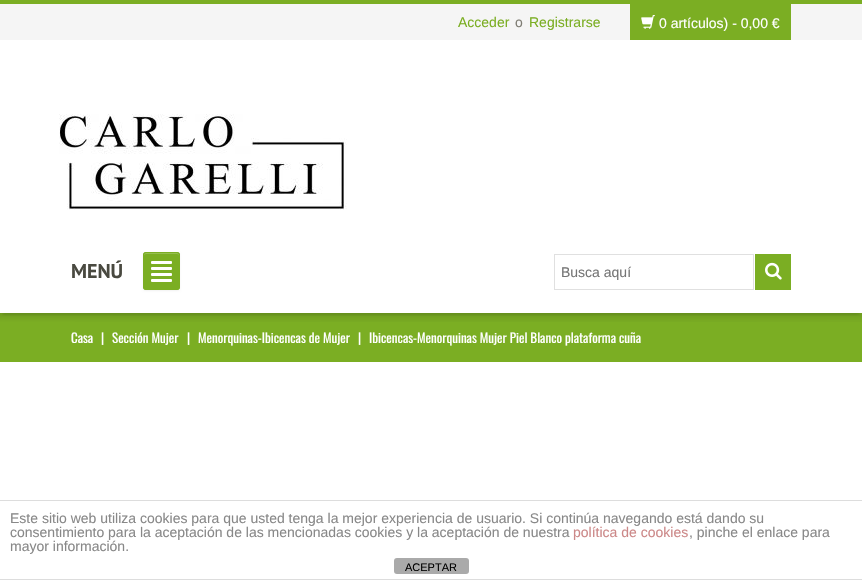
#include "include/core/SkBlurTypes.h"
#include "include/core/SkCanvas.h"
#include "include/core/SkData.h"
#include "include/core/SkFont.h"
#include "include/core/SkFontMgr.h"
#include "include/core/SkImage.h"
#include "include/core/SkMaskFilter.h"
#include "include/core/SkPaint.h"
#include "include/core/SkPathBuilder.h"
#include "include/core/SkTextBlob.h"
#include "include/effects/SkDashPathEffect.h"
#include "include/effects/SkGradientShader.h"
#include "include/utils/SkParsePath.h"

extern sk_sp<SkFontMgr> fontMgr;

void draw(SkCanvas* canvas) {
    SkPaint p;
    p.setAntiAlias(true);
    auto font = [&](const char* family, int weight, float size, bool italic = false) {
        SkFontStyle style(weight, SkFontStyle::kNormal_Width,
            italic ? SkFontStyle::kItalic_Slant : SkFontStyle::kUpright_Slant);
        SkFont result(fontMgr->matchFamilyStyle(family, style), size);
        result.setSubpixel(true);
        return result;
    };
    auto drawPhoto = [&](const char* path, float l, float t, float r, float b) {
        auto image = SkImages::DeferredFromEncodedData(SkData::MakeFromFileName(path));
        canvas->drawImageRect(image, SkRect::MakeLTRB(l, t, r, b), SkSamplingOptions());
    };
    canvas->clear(0xFFFFFFFF);
    p.setColor(0xFF7BAE23);
    canvas->drawRect(SkRect::MakeLTRB(0, 313, 862, 362), p);
    canvas->save();
    canvas->clipRect(SkRect::MakeLTRB(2, 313, 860, 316));
    p.setColor(0x1A000000);
    p.setMaskFilter(SkMaskFilter::MakeBlur(kNormal_SkBlurStyle, 1.5f));
    canvas->drawRect(SkRect::MakeLTRB(3, 8, 859, 315), p);
    p.setMaskFilter(nullptr);
    canvas->restore();
    p.setColor(0xFFF5F5F5);
    canvas->drawRect(SkRect::MakeLTRB(0, 4, 862, 40), p);
    p.setColor(0xFF7BAE23);
    canvas->drawRect(SkRect::MakeLTRB(0, 0, 862, 4), p);
    auto font1 = font("Liberation Sans", 400, 14);
    canvas->drawString("Acceder", 458, 27, font1, p);
    p.setColor(0xFF7F7D74);
    canvas->drawString("o", 515, 27, font1, p);
    p.setColor(0xFF7BAE23);
    canvas->drawString("Registrarse", 529, 27, font1, p);
    canvas->drawRect(SkRect::MakeLTRB(630, 4, 791, 40), p);
    drawPhoto("media/1.png", 641, 15, 655, 29);
    p.setColor(0xFFFFFFFF);
    canvas->drawString("0 artículos) - 0,00 €", 659, 28, font1, p);
    drawPhoto("media/2.png", 59, 114, 347, 210);
    auto font2 = font("PT Sans", 700, 20);
    p.setColor(0xFF494940);
    canvas->drawString("MENÚ", 71, 278, font2, p);
    p.setColor(0x0D000000);
    p.setMaskFilter(SkMaskFilter::MakeBlur(kNormal_SkBlurStyle, 1));
    canvas->drawRoundRect(SkRect::MakeLTRB(143, 253, 180, 291), 3, 3, p);
    p.setMaskFilter(nullptr);
    p.setColor(0xFF7BAE23);
    canvas->drawRoundRect(SkRect::MakeLTRB(143, 252, 180, 290), 3, 3, p);
    p.setColor(0xFF95BE4F);
    canvas->drawPath(SkPathBuilder().moveTo(146, 254).lineTo(177, 254).cubicTo(178, 254, 179, 255, 179, 256).cubicTo(179, 251.5f, 175.5f, 253, 172, 253).lineTo(151, 253).cubicTo(147.5f, 253, 144, 251.5f, 144, 256).cubicTo(144, 255, 145, 254, 146, 254).close().detach(), p);
    p.setStyle(SkPaint::kStroke_Style);
    p.setStrokeWidth(1);
    p.setColor(0xFF7BAE23);
    canvas->drawRoundRect(SkRect::MakeLTRB(143.5f, 252.5f, 179.5f, 289.5f), 2.5f, 2.5f, p);
    p.setStyle(SkPaint::kFill_Style);
    p.setColor(0xFFFFFFFF);
    canvas->drawRoundRect(SkRect::MakeLTRB(151, 261, 172, 264), 1, 1, p);
    canvas->drawRoundRect(SkRect::MakeLTRB(151, 267, 172, 270), 1, 1, p);
    canvas->drawRoundRect(SkRect::MakeLTRB(151, 273, 172, 276), 1, 1, p);
    canvas->drawRoundRect(SkRect::MakeLTRB(151, 279, 172, 282), 1, 1, p);
    p.setStyle(SkPaint::kStroke_Style);
    p.setColor(0xFFE0E0E0);
    canvas->drawRect(SkRect::MakeLTRB(554.5f, 254.5f, 753.5f, 289.5f), p);
    p.setStyle(SkPaint::kFill_Style);
    p.setColor(0xFF757575);
    canvas->drawString("Busca aquí", 561, 277, font1, p);
    p.setColor(0xFF7BAE23);
    canvas->drawRect(SkRect::MakeLTRB(755, 254, 791, 290), p);
    drawPhoto("media/3.png", 765, 262, 782, 280);
    drawPhoto("media/4.png", 0, 313, 862, 322);
    auto font3 = font("Oswald", 400, 13);
    p.setColor(0xFFFFFFFF);
    {
        const struct { const char* s; float x, y; } items[] = {
            {"Casa", 71, 343},
            {"|", 101, 343},
            {"Sección Mujer", 112, 343},
            {"|", 187, 343},
            {"Menorquinas-Ibicencas de Mujer", 198, 343},
            {"|", 358, 343},
            {"Ibicencas-Menorquinas Mujer Piel Blanco plataforma cuña", 369, 343},
        };
        for (auto [s, x, y] : items) {
            canvas->drawString(s, x, y, font3, p);
        }
    }
    p.setColor(0xFFDDDDDD);
    canvas->drawRect(SkRect::MakeLTRB(0, 500, 862, 501), p);
    canvas->drawRect(SkRect::MakeLTRB(0, 579, 862, 580), p);
    p.setColor(0xFF888888);
    canvas->drawString("Este sitio web utiliza cookies para que usted tenga la mejor experiencia de usuario. Si continúa navegando está dando su", 10, 523, font1, p);
    canvas->drawString("consentimiento para la aceptación de las mencionadas cookies y la aceptación de nuestra", 10, 537, font1, p);
    p.setColor(0xFFCC8888);
    canvas->drawString("política de cookies", 573, 537, font1, p);
    p.setColor(0xFF888888);
    canvas->drawString(", pinche el enlace para", 689, 537, font1, p);
    canvas->drawString("mayor información.", 10, 551, font1, p);
    p.setColor(0xFFAAAAAA);
    canvas->drawRoundRect(SkRect::MakeLTRB(394, 558, 469, 574), 3, 3, p);
    auto font4 = font("Liberation Sans", 400, 11);
    p.setColor(0xFF000000);
    canvas->drawString("ACEPTAR", 405, 571, font4, p);
}
